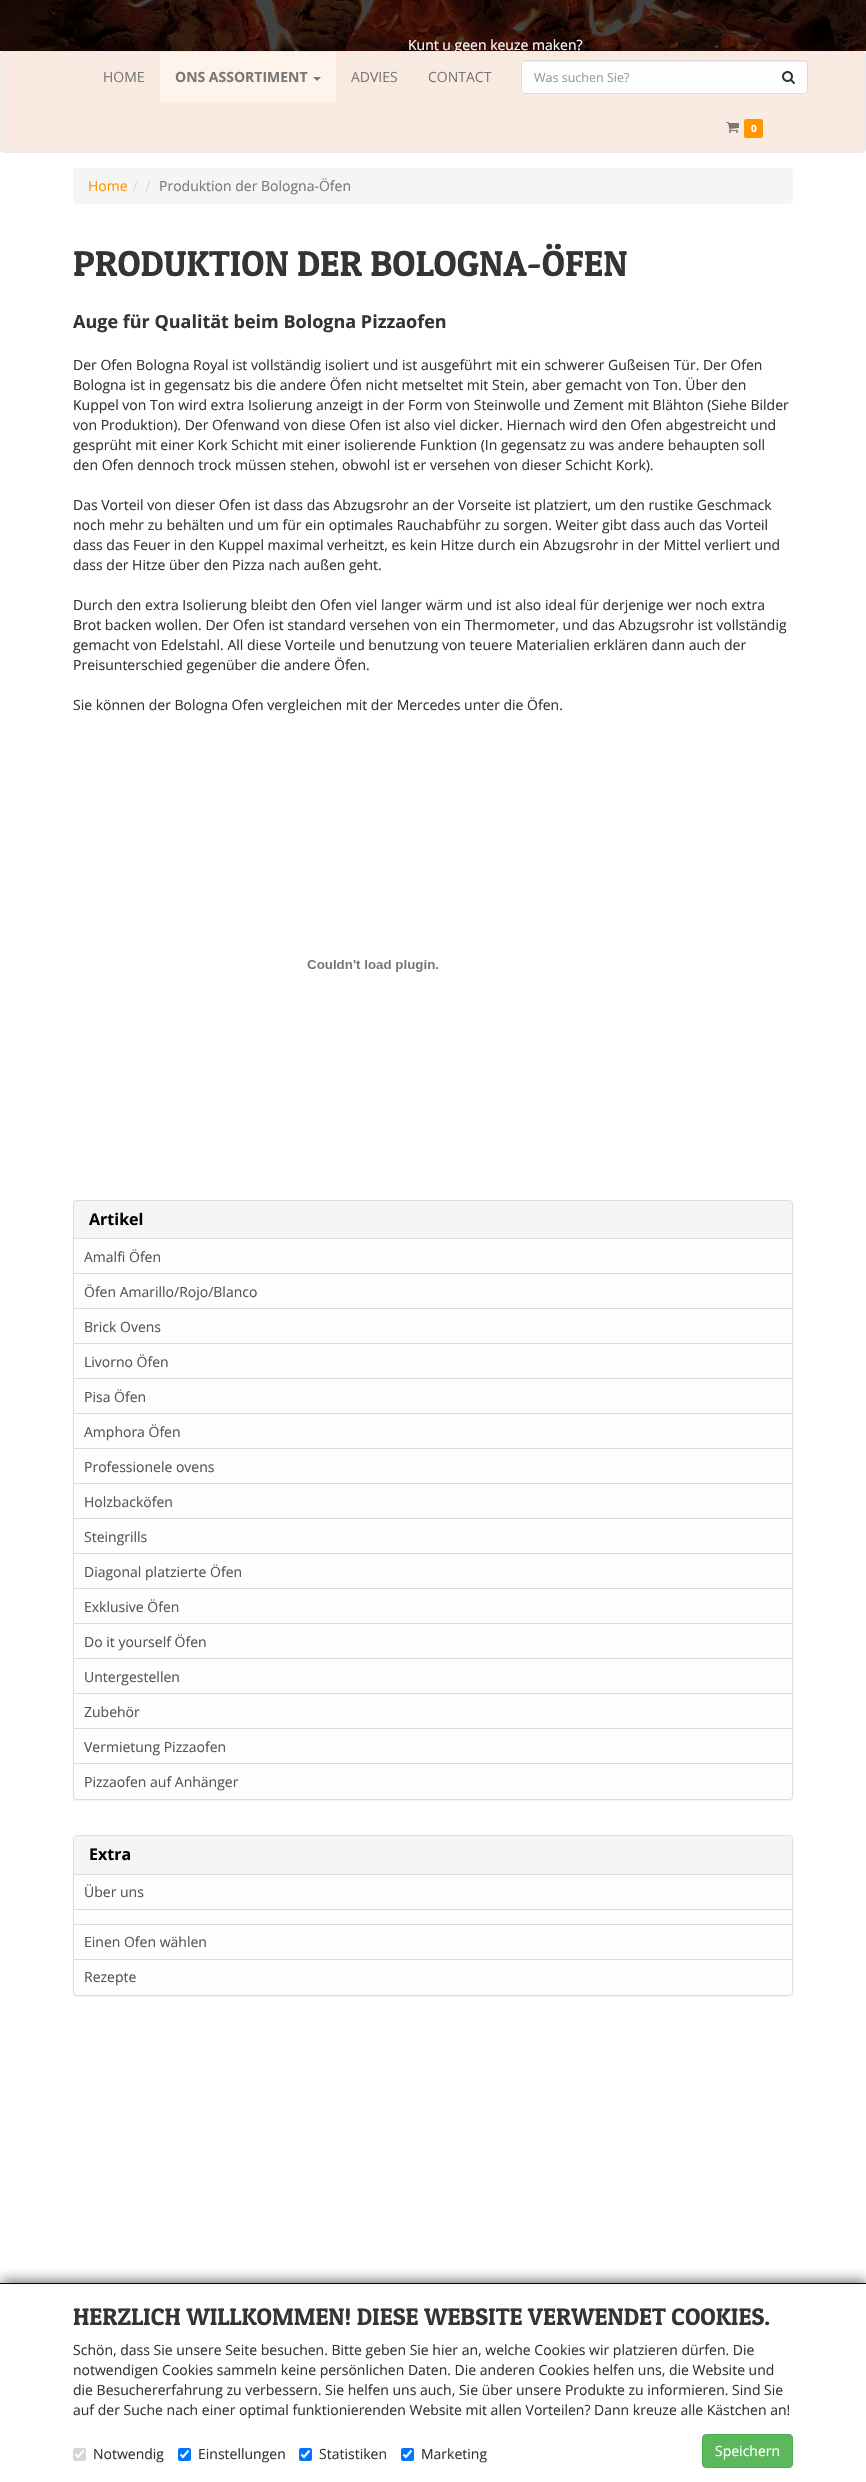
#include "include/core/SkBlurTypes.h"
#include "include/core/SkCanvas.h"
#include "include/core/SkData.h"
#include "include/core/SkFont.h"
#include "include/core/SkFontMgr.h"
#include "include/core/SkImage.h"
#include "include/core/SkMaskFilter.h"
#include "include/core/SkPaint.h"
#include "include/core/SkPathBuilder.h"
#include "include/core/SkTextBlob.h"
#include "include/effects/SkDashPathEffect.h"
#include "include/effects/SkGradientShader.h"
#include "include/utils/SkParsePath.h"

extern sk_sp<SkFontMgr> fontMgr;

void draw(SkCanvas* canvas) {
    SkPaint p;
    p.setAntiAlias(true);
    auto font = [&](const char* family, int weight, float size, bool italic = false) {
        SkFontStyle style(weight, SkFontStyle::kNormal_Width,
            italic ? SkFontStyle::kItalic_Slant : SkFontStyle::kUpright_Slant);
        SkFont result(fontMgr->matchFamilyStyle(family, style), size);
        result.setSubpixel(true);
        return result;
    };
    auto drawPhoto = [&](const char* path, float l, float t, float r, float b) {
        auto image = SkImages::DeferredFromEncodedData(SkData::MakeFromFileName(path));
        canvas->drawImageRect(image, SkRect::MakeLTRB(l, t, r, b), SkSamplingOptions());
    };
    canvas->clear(0xFFFFFFFF);
    drawPhoto("media/1.png", 0, 0, 866, 51);
    auto font1 = font("Open Sans", 400, 14);
    p.setColor(0xFFFFFFFF);
    canvas->drawString("Kunt u geen keuze maken?", 408, 50, font1, p);
    p.setColor(0xFFF9EBE1);
    canvas->drawRoundRect(SkRect::MakeLTRB(0.5f, 51.5f, 865.5f, 152.5f), 3.5f, 3.5f, p);
    p.setStyle(SkPaint::kStroke_Style);
    p.setStrokeWidth(1);
    p.setColor(0xFFEBEBEB);
    canvas->drawRoundRect(SkRect::MakeLTRB(0.5f, 51.5f, 865.5f, 152.5f), 3.5f, 3.5f, p);
    p.setStyle(SkPaint::kFill_Style);
    p.setColor(0xFF787878);
    canvas->drawString("HOME", 103, 82, font1, p);
    p.setColor(0xFFFFF4EB);
    canvas->drawRect(SkRect::MakeLTRB(160, 52, 336, 102), p);
    auto font2 = font("Open Sans", 700, 14);
    p.setColor(0xFF787878);
    canvas->drawString("ONS ASSORTIMENT", 175, 82, font2, p);
    canvas->drawPath(SkPathBuilder().moveTo(313, 77).lineTo(321, 77).lineTo(317, 81).close().detach(), p);
    canvas->drawString("ADVIES", 351, 82, font1, p);
    canvas->drawString("CONTACT", 428, 82, font1, p);
    p.setColor(0xFFFEFEFE);
    canvas->drawPath(SkPathBuilder().moveTo(525, 60).lineTo(771, 60).lineTo(771, 94).lineTo(525, 94).cubicTo(523, 94, 521, 92, 521, 90).lineTo(521, 64).cubicTo(521, 62, 523, 60, 525, 60).close().detach(), p);
    p.setColor(0xFFEBEBEB);
    canvas->drawPath(SkPathBuilder().moveTo(525, 62).lineTo(770, 62).lineTo(770, 61).lineTo(525, 61).cubicTo(523, 61, 522, 63, 522, 65).cubicTo(522, 63, 523, 62, 525, 62).close().detach(), p);
    p.setStyle(SkPaint::kStroke_Style);
    p.setColor(0xFFDDDDDD);
    canvas->drawPath(SkPathBuilder().moveTo(525, 60.5f).lineTo(770.5f, 60.5f).lineTo(770.5f, 93.5f).lineTo(525, 93.5f).cubicTo(523, 93.5f, 521.5f, 92, 521.5f, 90).lineTo(521.5f, 64).cubicTo(521.5f, 62, 523, 60.5f, 525, 60.5f).close().detach(), p);
    auto font3 = font("Open Sans", 400, 12.5f);
    p.setStyle(SkPaint::kFill_Style);
    p.setColor(0xFF999999);
    canvas->drawString("Was suchen Sie?", 534, 82, font3, p);
    p.setColor(0xFFFEFEFE);
    canvas->drawPath(SkPathBuilder().moveTo(770, 60).lineTo(804, 60).cubicTo(806, 60, 808, 62, 808, 64).lineTo(808, 90).cubicTo(808, 92, 806, 94, 804, 94).lineTo(770, 94).close().detach(), p);
    p.setColor(0xFFEBEBEB);
    canvas->drawPath(SkPathBuilder().moveTo(770, 62).lineTo(804, 62).cubicTo(806, 62, 807, 63, 807, 65).lineTo(807, 64).cubicTo(807, 62.5f, 805.5f, 61, 804, 61).lineTo(770, 61).close().detach(), p);
    p.setColor(0xFFDDDDDD);
    canvas->drawPath(SkPathBuilder(SkPathFillType::kEvenOdd).moveTo(770, 60).lineTo(804, 60).cubicTo(806, 60, 808, 62, 808, 64).lineTo(808, 90).cubicTo(808, 92, 806, 94, 804, 94).lineTo(770, 94).close().moveTo(770, 61).lineTo(804, 61).cubicTo(805.5f, 61, 807, 62.5f, 807, 64).lineTo(807, 90).cubicTo(807, 91.5f, 805.5f, 93, 804, 93).lineTo(770, 93).close().detach(), p);
    drawPhoto("media/2.png", 782, 71, 795, 84);
    drawPhoto("media/3.png", 726, 122, 739, 133);
    p.setColor(0xFFFF9800);
    canvas->drawRoundRect(SkRect::MakeLTRB(744, 119, 763, 138), 2.5f, 2.5f, p);
    auto font4 = font("Open Sans", 700, 10);
    p.setColor(0xFFFFFFFF);
    canvas->drawString("0", 751, 132, font4, p);
    p.setColor(0xFFF5F5F5);
    canvas->drawRoundRect(SkRect::MakeLTRB(73, 168, 793, 204), 4, 4, p);
    p.setColor(0xFFFF9800);
    canvas->drawString("Home", 88, 191, font1, p);
    auto font5 = font("Liberation Serif", 400, 14);
    p.setColor(0xFFCCCCCC);
    canvas->drawString("/", 133, 191, font5, p);
    canvas->drawString("/", 146, 191, font5, p);
    p.setColor(0xFF787878);
    canvas->drawString("Produktion der Bologna-Öfen", 159, 191, font1, p);
    auto font6 = font("Patua One", 400, 36);
    p.setColor(0xFF343434);
    canvas->drawString("PRODUKTION DER BOLOGNA-ÖFEN", 73, 276, font6, p);
    auto font7 = font("Open Sans", 700, 18);
    canvas->drawString("Auge für Qualität beim Bologna Pizzaofen", 73, 328, font7, p);
    {
        const struct { const char* s; float x, y; } items[] = {
            {"Der Ofen Bologna Royal ist vollständig isoliert und ist ausgeführt mit ein schwerer Gußeisen Tür. Der Ofen", 73, 370},
            {"Bologna ist in gegensatz bis die andere Öfen nicht metseltet mit Stein, aber gemacht von Ton. Über den", 73, 390},
            {"Kuppel von Ton wird extra Isolierung anzeigt in der Form von Steinwolle und Zement mit Blähton (Siehe Bilder", 73, 410},
            {"von Produktion). Der Ofenwand von diese Ofen ist also viel dicker. Hiernach wird den Ofen abgestreicht und", 73, 430},
            {"gesprüht mit einer Kork Schicht mit einer isolierende Funktion (In gegensatz zu was andere behaupten soll", 73, 450},
            {"den Ofen dennoch trock müssen stehen, obwohl ist er versehen von dieser Schicht Kork).", 73, 470},
            {"Das Vorteil von dieser Ofen ist dass das Abzugsrohr an der Vorseite ist platziert, um den rustike Geschmack", 73, 510},
            {"noch mehr zu behälten und um für ein optimales Rauchabführ zu sorgen. Weiter gibt dass auch das Vorteil", 73, 530},
            {"dass das Feuer in den Kuppel maximal verheitzt, es kein Hitze durch ein Abzugsrohr in der Mittel verliert und", 73, 550},
            {"dass der Hitze über den Pizza nach außen geht.", 73, 570},
            {"Durch den extra Isolierung bleibt den Ofen viel langer wärm und ist also ideal für derjenige wer noch extra", 73, 610},
            {"Brot backen wollen. Der Ofen ist standard versehen von ein Thermometer, und das Abzugsrohr ist vollständig", 73, 630},
            {"gemacht von Edelstahl. All diese Vorteile und benutzung von teuere Materialien erklären dann auch der", 73, 650},
            {"Preisunterschied gegenüber die andere Öfen.", 73, 670},
            {"Sie können der Bologna Ofen vergleichen mit der Mercedes unter die Öfen.", 73, 710},
        };
        for (auto [s, x, y] : items) {
            canvas->drawString(s, x, y, font1, p);
        }
    }
    drawPhoto("media/4.png", 307, 960, 438, 972);
    p.setColor(0x0D000000);
    p.setMaskFilter(SkMaskFilter::MakeBlur(kNormal_SkBlurStyle, 0.5f));
    canvas->drawRoundRect(SkRect::MakeLTRB(73, 1201, 793, 1801), 4, 4, p);
    p.setMaskFilter(nullptr);
    p.setColor(0xFFFEFEFE);
    canvas->drawRoundRect(SkRect::MakeLTRB(73.5f, 1200.5f, 792.5f, 1799.5f), 3.5f, 3.5f, p);
    p.setStyle(SkPaint::kStroke_Style);
    p.setColor(0xFFDDDDDD);
    canvas->drawRoundRect(SkRect::MakeLTRB(73.5f, 1200.5f, 792.5f, 1799.5f), 3.5f, 3.5f, p);
    p.setStyle(SkPaint::kFill_Style);
    p.setColor(0xFFF5F5F5);
    canvas->drawPath(SkPathBuilder().moveTo(77, 1201).lineTo(789, 1201).cubicTo(790.5f, 1201, 792, 1202.5f, 792, 1204).lineTo(792, 1239).lineTo(74, 1239).lineTo(74, 1204).cubicTo(74, 1202.5f, 75.5f, 1201, 77, 1201).close().detach(), p);
    p.setColor(0xFFDDDDDD);
    canvas->drawRect(SkRect::MakeLTRB(74, 1238, 792, 1239), p);
    auto font8 = font("Open Sans", 700, 16);
    p.setColor(0xFF050100);
    canvas->drawString("Artikel", 89, 1225, font8, p);
    p.setColor(0xFF555555);
    canvas->drawString("Amalfi Öfen", 84, 1262, font1, p);
    p.setColor(0xFFDDDDDD);
    canvas->drawRect(SkRect::MakeLTRB(74, 1273, 792, 1274), p);
    p.setColor(0xFF555555);
    canvas->drawString("Öfen Amarillo/Rojo/Blanco", 84, 1297, font1, p);
    p.setColor(0xFFDDDDDD);
    canvas->drawRect(SkRect::MakeLTRB(74, 1308, 792, 1309), p);
    p.setColor(0xFF555555);
    canvas->drawString("Brick Ovens", 84, 1332, font1, p);
    p.setColor(0xFFDDDDDD);
    canvas->drawRect(SkRect::MakeLTRB(74, 1343, 792, 1344), p);
    p.setColor(0xFF555555);
    canvas->drawString("Livorno Öfen", 84, 1367, font1, p);
    p.setColor(0xFFDDDDDD);
    canvas->drawRect(SkRect::MakeLTRB(74, 1378, 792, 1379), p);
    p.setColor(0xFF555555);
    canvas->drawString("Pisa Öfen", 84, 1402, font1, p);
    p.setColor(0xFFDDDDDD);
    canvas->drawRect(SkRect::MakeLTRB(74, 1413, 792, 1414), p);
    p.setColor(0xFF555555);
    canvas->drawString("Amphora Öfen", 84, 1437, font1, p);
    p.setColor(0xFFDDDDDD);
    canvas->drawRect(SkRect::MakeLTRB(74, 1448, 792, 1449), p);
    p.setColor(0xFF555555);
    canvas->drawString("Professionele ovens", 84, 1472, font1, p);
    p.setColor(0xFFDDDDDD);
    canvas->drawRect(SkRect::MakeLTRB(74, 1483, 792, 1484), p);
    p.setColor(0xFF555555);
    canvas->drawString("Holzbacköfen", 84, 1507, font1, p);
    p.setColor(0xFFDDDDDD);
    canvas->drawRect(SkRect::MakeLTRB(74, 1518, 792, 1519), p);
    p.setColor(0xFF555555);
    canvas->drawString("Steingrills", 84, 1542, font1, p);
    p.setColor(0xFFDDDDDD);
    canvas->drawRect(SkRect::MakeLTRB(74, 1553, 792, 1554), p);
    p.setColor(0xFF555555);
    canvas->drawString("Diagonal platzierte Öfen", 84, 1577, font1, p);
    p.setColor(0xFFDDDDDD);
    canvas->drawRect(SkRect::MakeLTRB(74, 1588, 792, 1589), p);
    p.setColor(0xFF555555);
    canvas->drawString("Exklusive Öfen", 84, 1612, font1, p);
    p.setColor(0xFFDDDDDD);
    canvas->drawRect(SkRect::MakeLTRB(74, 1623, 792, 1624), p);
    p.setColor(0xFF555555);
    canvas->drawString("Do it yourself Öfen", 84, 1647, font1, p);
    p.setColor(0xFFDDDDDD);
    canvas->drawRect(SkRect::MakeLTRB(74, 1658, 792, 1659), p);
    p.setColor(0xFF555555);
    canvas->drawString("Untergestellen", 84, 1682, font1, p);
    p.setColor(0xFFDDDDDD);
    canvas->drawRect(SkRect::MakeLTRB(74, 1693, 792, 1694), p);
    p.setColor(0xFF555555);
    canvas->drawString("Zubehör", 84, 1717, font1, p);
    p.setColor(0xFFDDDDDD);
    canvas->drawRect(SkRect::MakeLTRB(74, 1728, 792, 1729), p);
    p.setColor(0xFF555555);
    canvas->drawString("Vermietung Pizzaofen", 84, 1752, font1, p);
    p.setColor(0xFFDDDDDD);
    canvas->drawRect(SkRect::MakeLTRB(74, 1763, 792, 1764), p);
    p.setColor(0xFF555555);
    canvas->drawString("Pizzaofen auf Anhänger", 84, 1787, font1, p);
    p.setColor(0x0D000000);
    p.setMaskFilter(SkMaskFilter::MakeBlur(kNormal_SkBlurStyle, 0.5f));
    canvas->drawRoundRect(SkRect::MakeLTRB(73, 1836, 793, 1997), 4, 4, p);
    p.setMaskFilter(nullptr);
    p.setColor(0xFFFEFEFE);
    canvas->drawRoundRect(SkRect::MakeLTRB(73.5f, 1835.5f, 792.5f, 1995.5f), 3.5f, 3.5f, p);
    p.setStyle(SkPaint::kStroke_Style);
    p.setColor(0xFFDDDDDD);
    canvas->drawRoundRect(SkRect::MakeLTRB(73.5f, 1835.5f, 792.5f, 1995.5f), 3.5f, 3.5f, p);
    p.setStyle(SkPaint::kFill_Style);
    p.setColor(0xFFF5F5F5);
    canvas->drawPath(SkPathBuilder().moveTo(77, 1836).lineTo(789, 1836).cubicTo(790.5f, 1836, 792, 1837.5f, 792, 1839).lineTo(792, 1875).lineTo(74, 1875).lineTo(74, 1839).cubicTo(74, 1837.5f, 75.5f, 1836, 77, 1836).close().detach(), p);
    p.setColor(0xFFDDDDDD);
    canvas->drawRect(SkRect::MakeLTRB(74, 1874, 792, 1875), p);
    p.setColor(0xFF050100);
    canvas->drawString("Extra", 89, 1860, font8, p);
    p.setColor(0xFF555555);
    canvas->drawString("Über uns", 84, 1897, font1, p);
    p.setColor(0xFFDDDDDD);
    canvas->drawRect(SkRect::MakeLTRB(74, 1909, 792, 1910), p);
    canvas->drawRect(SkRect::MakeLTRB(74, 1924, 792, 1925), p);
    p.setColor(0xFF555555);
    canvas->drawString("Einen Ofen wählen", 84, 1947, font1, p);
    p.setColor(0xFFDDDDDD);
    canvas->drawRect(SkRect::MakeLTRB(74, 1959, 792, 1960), p);
    p.setColor(0xFF555555);
    canvas->drawString("Rezepte", 84, 1982, font1, p);
    canvas->save();
    canvas->clipRect(SkRect::MakeLTRB(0, 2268, 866, 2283));
    p.setColor(0xFF808080);
    p.setMaskFilter(SkMaskFilter::MakeBlur(kNormal_SkBlurStyle, 6));
    canvas->drawRect(SkRect::MakeLTRB(1, 2280, 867, 2479), p);
    p.setMaskFilter(nullptr);
    canvas->restore();
    p.setColor(0xFF000000);
    canvas->drawRect(SkRect::MakeLTRB(0, 2283, 866, 2284), p);
    auto font9 = font("Patua One", 400, 24);
    p.setColor(0xFF343434);
    canvas->drawString("HERZLICH WILLKOMMEN! DIESE WEBSITE VERWENDET COOKIES.", 73, 2325, font9, p);
    {
        const struct { const char* s; float x, y; } items[] = {
            {"Schön, dass Sie unsere Seite besuchen. Bitte geben Sie hier an, welche Cookies wir platzieren dürfen. Die", 73, 2355},
            {"notwendigen Cookies sammeln keine persönlichen Daten. Die anderen Cookies helfen uns, die Website und", 73, 2375},
            {"die Besuchererfahrung zu verbessern. Sie helfen uns auch, Sie über unsere Produkte zu informieren. Sind Sie", 73, 2395},
            {"auf der Suche nach einer optimal funktionierenden Website mit allen Vorteilen? Dann kreuze alle Kästchen an!", 73, 2415},
        };
        for (auto [s, x, y] : items) {
            canvas->drawString(s, x, y, font1, p);
        }
    }
    p.setColor(0xFFD6D6D6);
    canvas->drawRoundRect(SkRect::MakeLTRB(73, 2448, 86, 2461), 2, 2, p);
    p.setStyle(SkPaint::kStroke_Style);
    p.setStrokeWidth(2.1f);
    p.setColor(0xFFFFFFFF);
    canvas->drawPath(SkPathBuilder().moveTo(75.5f, 2454.5f).lineTo(78, 2457).lineTo(83.5f, 2450.5f).detach(), p);
    p.setStyle(SkPaint::kFill_Style);
    p.setColor(0xFF343434);
    canvas->drawString("Notwendig", 93, 2459, font1, p);
    p.setColor(0xFF0075FF);
    canvas->drawRoundRect(SkRect::MakeLTRB(178, 2448, 191, 2461), 2, 2, p);
    p.setStyle(SkPaint::kStroke_Style);
    p.setColor(0xFFFFFFFF);
    canvas->drawPath(SkPathBuilder().moveTo(180.5f, 2454.5f).lineTo(183, 2457).lineTo(188.5f, 2450.5f).detach(), p);
    p.setStyle(SkPaint::kFill_Style);
    p.setColor(0xFF343434);
    canvas->drawString("Einstellungen", 198, 2459, font1, p);
    p.setColor(0xFF0075FF);
    canvas->drawRoundRect(SkRect::MakeLTRB(299, 2448, 312, 2461), 2, 2, p);
    p.setStyle(SkPaint::kStroke_Style);
    p.setColor(0xFFFFFFFF);
    canvas->drawPath(SkPathBuilder().moveTo(301.5f, 2454.5f).lineTo(304, 2457).lineTo(309.5f, 2450.5f).detach(), p);
    p.setStyle(SkPaint::kFill_Style);
    p.setColor(0xFF343434);
    canvas->drawString("Statistiken", 319, 2459, font1, p);
    p.setColor(0xFF0075FF);
    canvas->drawRoundRect(SkRect::MakeLTRB(401, 2448, 414, 2461), 2, 2, p);
    p.setStyle(SkPaint::kStroke_Style);
    p.setColor(0xFFFFFFFF);
    canvas->drawPath(SkPathBuilder().moveTo(403.5f, 2454.5f).lineTo(406, 2457).lineTo(411.5f, 2450.5f).detach(), p);
    p.setStyle(SkPaint::kFill_Style);
    p.setColor(0xFF343434);
    canvas->drawString("Marketing", 421, 2459, font1, p);
    p.setColor(0xFF5CB85C);
    canvas->drawRoundRect(SkRect::MakeLTRB(702.5f, 2434.5f, 792.5f, 2467.5f), 3.5f, 3.5f, p);
    p.setStyle(SkPaint::kStroke_Style);
    p.setStrokeWidth(1);
    p.setColor(0xFF4CAE4C);
    canvas->drawRoundRect(SkRect::MakeLTRB(702.5f, 2434.5f, 792.5f, 2467.5f), 3.5f, 3.5f, p);
    p.setStyle(SkPaint::kFill_Style);
    p.setColor(0xFFFFFFFF);
    canvas->drawString("Speichern", 715, 2456, font1, p);
}
